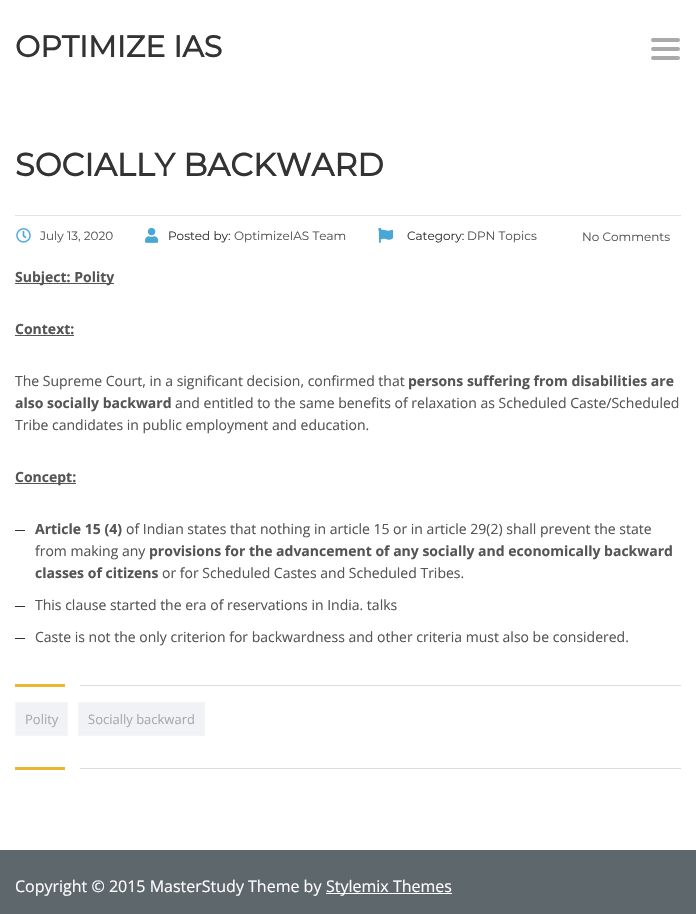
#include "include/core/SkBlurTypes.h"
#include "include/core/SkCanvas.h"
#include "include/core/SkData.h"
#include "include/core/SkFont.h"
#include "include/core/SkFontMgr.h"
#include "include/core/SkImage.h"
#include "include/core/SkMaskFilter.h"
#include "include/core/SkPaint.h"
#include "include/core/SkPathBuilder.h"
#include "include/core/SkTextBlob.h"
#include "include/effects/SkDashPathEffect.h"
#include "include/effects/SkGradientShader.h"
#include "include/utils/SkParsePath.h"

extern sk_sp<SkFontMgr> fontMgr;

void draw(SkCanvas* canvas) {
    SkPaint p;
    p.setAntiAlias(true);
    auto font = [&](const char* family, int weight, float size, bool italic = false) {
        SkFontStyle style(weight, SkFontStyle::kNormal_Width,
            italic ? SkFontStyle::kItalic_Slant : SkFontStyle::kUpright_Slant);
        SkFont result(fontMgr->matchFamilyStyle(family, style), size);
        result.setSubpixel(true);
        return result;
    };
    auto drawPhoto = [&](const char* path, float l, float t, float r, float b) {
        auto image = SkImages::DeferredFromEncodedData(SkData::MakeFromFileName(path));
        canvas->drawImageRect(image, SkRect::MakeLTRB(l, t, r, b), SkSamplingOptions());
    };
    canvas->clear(0xFFFFFFFF);
    auto font1 = font("Montserrat", 700, 30);
    p.setColor(0xFF333333);
    canvas->drawString("OPTIMIZE IAS", 15, 57, font1, p);
    p.setColor(0xFFAAAAAA);
    canvas->drawRoundRect(SkRect::MakeLTRB(651, 38, 680, 42), 2, 2, p);
    canvas->drawRoundRect(SkRect::MakeLTRB(651, 47, 680, 51), 2, 2, p);
    canvas->drawRoundRect(SkRect::MakeLTRB(651, 56, 680, 60), 2, 2, p);
    p.setColor(0xFFE1E2E4);
    canvas->drawRect(SkRect::MakeLTRB(15, 215, 681, 216), p);
    auto font2 = font("Montserrat", 700, 32);
    p.setColor(0xFF333333);
    canvas->drawString("SOCIALLY BACKWARD", 15, 176, font2, p);
    drawPhoto("media/1.png", 16, 228, 31, 243);
    auto font3 = font("Montserrat", 100, 12);
    p.setColor(0xFF555555);
    canvas->drawString("July 13, 2020", 40, 240, font3, p);
    drawPhoto("media/2.png", 145, 227, 159, 243);
    p.setColor(0xFF333333);
    canvas->drawString("Posted by:", 168, 240, font3, p);
    p.setColor(0xFF555555);
    canvas->drawString("OptimizeIAS Team", 234, 240, font3, p);
    drawPhoto("media/3.png", 378, 227, 393, 243);
    p.setColor(0xFF333333);
    canvas->drawString("Category:", 407, 240, font3, p);
    p.setColor(0xFF555555);
    canvas->drawString("DPN Topics", 467, 240, font3, p);
    canvas->drawString("No Comments", 582, 241, font3, p);
    canvas->drawRect(SkRect::MakeLTRB(15, 283, 114, 284), p);
    auto font4 = font("Open Sans", 700, 14);
    canvas->drawString("Subject: Polity", 15, 282, font4, p);
    canvas->drawString("Context:", 15, 334, font4, p);
    canvas->drawRect(SkRect::MakeLTRB(15, 335, 74, 336), p);
    auto font5 = font("Open Sans", 400, 14);
    canvas->drawString("The Supreme Court, in a significant decision, confirmed that", 15, 386, font5, p);
    canvas->drawString("persons suffering from disabilities are", 408, 386, font4, p);
    canvas->drawString("also socially backward", 15, 408, font4, p);
    canvas->drawString("and entitled to the same benefits of relaxation as Scheduled Caste/Scheduled", 175, 408, font5, p);
    canvas->drawString("Tribe candidates in public employment and education.", 15, 430, font5, p);
    canvas->drawRect(SkRect::MakeLTRB(15, 483, 76, 484), p);
    canvas->drawString("Concept:", 15, 482, font4, p);
    p.setColor(0xFF333333);
    canvas->drawRect(SkRect::MakeLTRB(15, 530, 25, 531), p);
    p.setColor(0xFF555555);
    canvas->drawString("Article 15 (4)", 35, 534, font4, p);
    canvas->drawString("of Indian states that nothing in article 15 or in article 29(2) shall prevent the state", 126, 534, font5, p);
    canvas->drawString("from making any", 35, 556, font5, p);
    canvas->drawString("provisions for the advancement of any socially and economically backward", 149, 556, font4, p);
    canvas->drawString("classes of citizens", 35, 578, font4, p);
    canvas->drawString("or for Scheduled Castes and Scheduled Tribes.", 162, 578, font5, p);
    p.setColor(0xFF333333);
    canvas->drawRect(SkRect::MakeLTRB(15, 606, 25, 607), p);
    p.setColor(0xFF555555);
    canvas->drawString("This clause started the era of reservations in India. talks", 35, 610, font5, p);
    p.setColor(0xFF333333);
    canvas->drawRect(SkRect::MakeLTRB(15, 638, 25, 639), p);
    p.setColor(0xFF555555);
    canvas->drawString("Caste is not the only criterion for backwardness and other criteria must also be considered.", 35, 642, font5, p);
    p.setColor(0xFFEAB830);
    canvas->drawRect(SkRect::MakeLTRB(15, 684, 65, 687), p);
    p.setColor(0xFFDCDCDC);
    canvas->drawRect(SkRect::MakeLTRB(80, 685, 681, 686), p);
    p.setColor(0xFFF0F2F5);
    canvas->drawRect(SkRect::MakeLTRB(15.5f, 702.5f, 67.5f, 735.5f), p);
    p.setStyle(SkPaint::kStroke_Style);
    p.setStrokeWidth(1);
    p.setColor(0xFFF5F5F5);
    canvas->drawRect(SkRect::MakeLTRB(15.5f, 702.5f, 67.5f, 735.5f), p);
    auto font6 = font("Open Sans", 400, 13);
    p.setStyle(SkPaint::kFill_Style);
    p.setColor(0xFFAAAAAA);
    canvas->drawString("Polity", 25, 724, font6, p);
    p.setColor(0xFFF0F2F5);
    canvas->drawRect(SkRect::MakeLTRB(78.5f, 702.5f, 204.5f, 735.5f), p);
    p.setStyle(SkPaint::kStroke_Style);
    p.setColor(0xFFF5F5F5);
    canvas->drawRect(SkRect::MakeLTRB(78.5f, 702.5f, 204.5f, 735.5f), p);
    p.setStyle(SkPaint::kFill_Style);
    p.setColor(0xFFAAAAAA);
    canvas->drawString("Socially backward", 88, 724, font6, p);
    {
        const struct { float l, t, r, b; SkColor color; } items[] = {
            {15, 767, 65, 770, 0xFFEAB830},
            {80, 768, 681, 769, 0xFFDCDCDC},
            {0, 850, 696, 914, 0xFF5E676B},
        };
        for (auto [l, t, r, b, color] : items) {
            p.setColor(color);
            canvas->drawRect(SkRect::MakeLTRB(l, t, r, b), p);
        }
    }
    auto font7 = font("Open Sans", 400, 16);
    p.setColor(0xFFFFFFFF);
    canvas->drawString("Copyright © 2015 MasterStudy Theme by", 15, 892, font7, p);
    canvas->drawRect(SkRect::MakeLTRB(326, 893, 452, 894), p);
    canvas->drawString("Stylemix Themes", 326, 892, font7, p);
}
